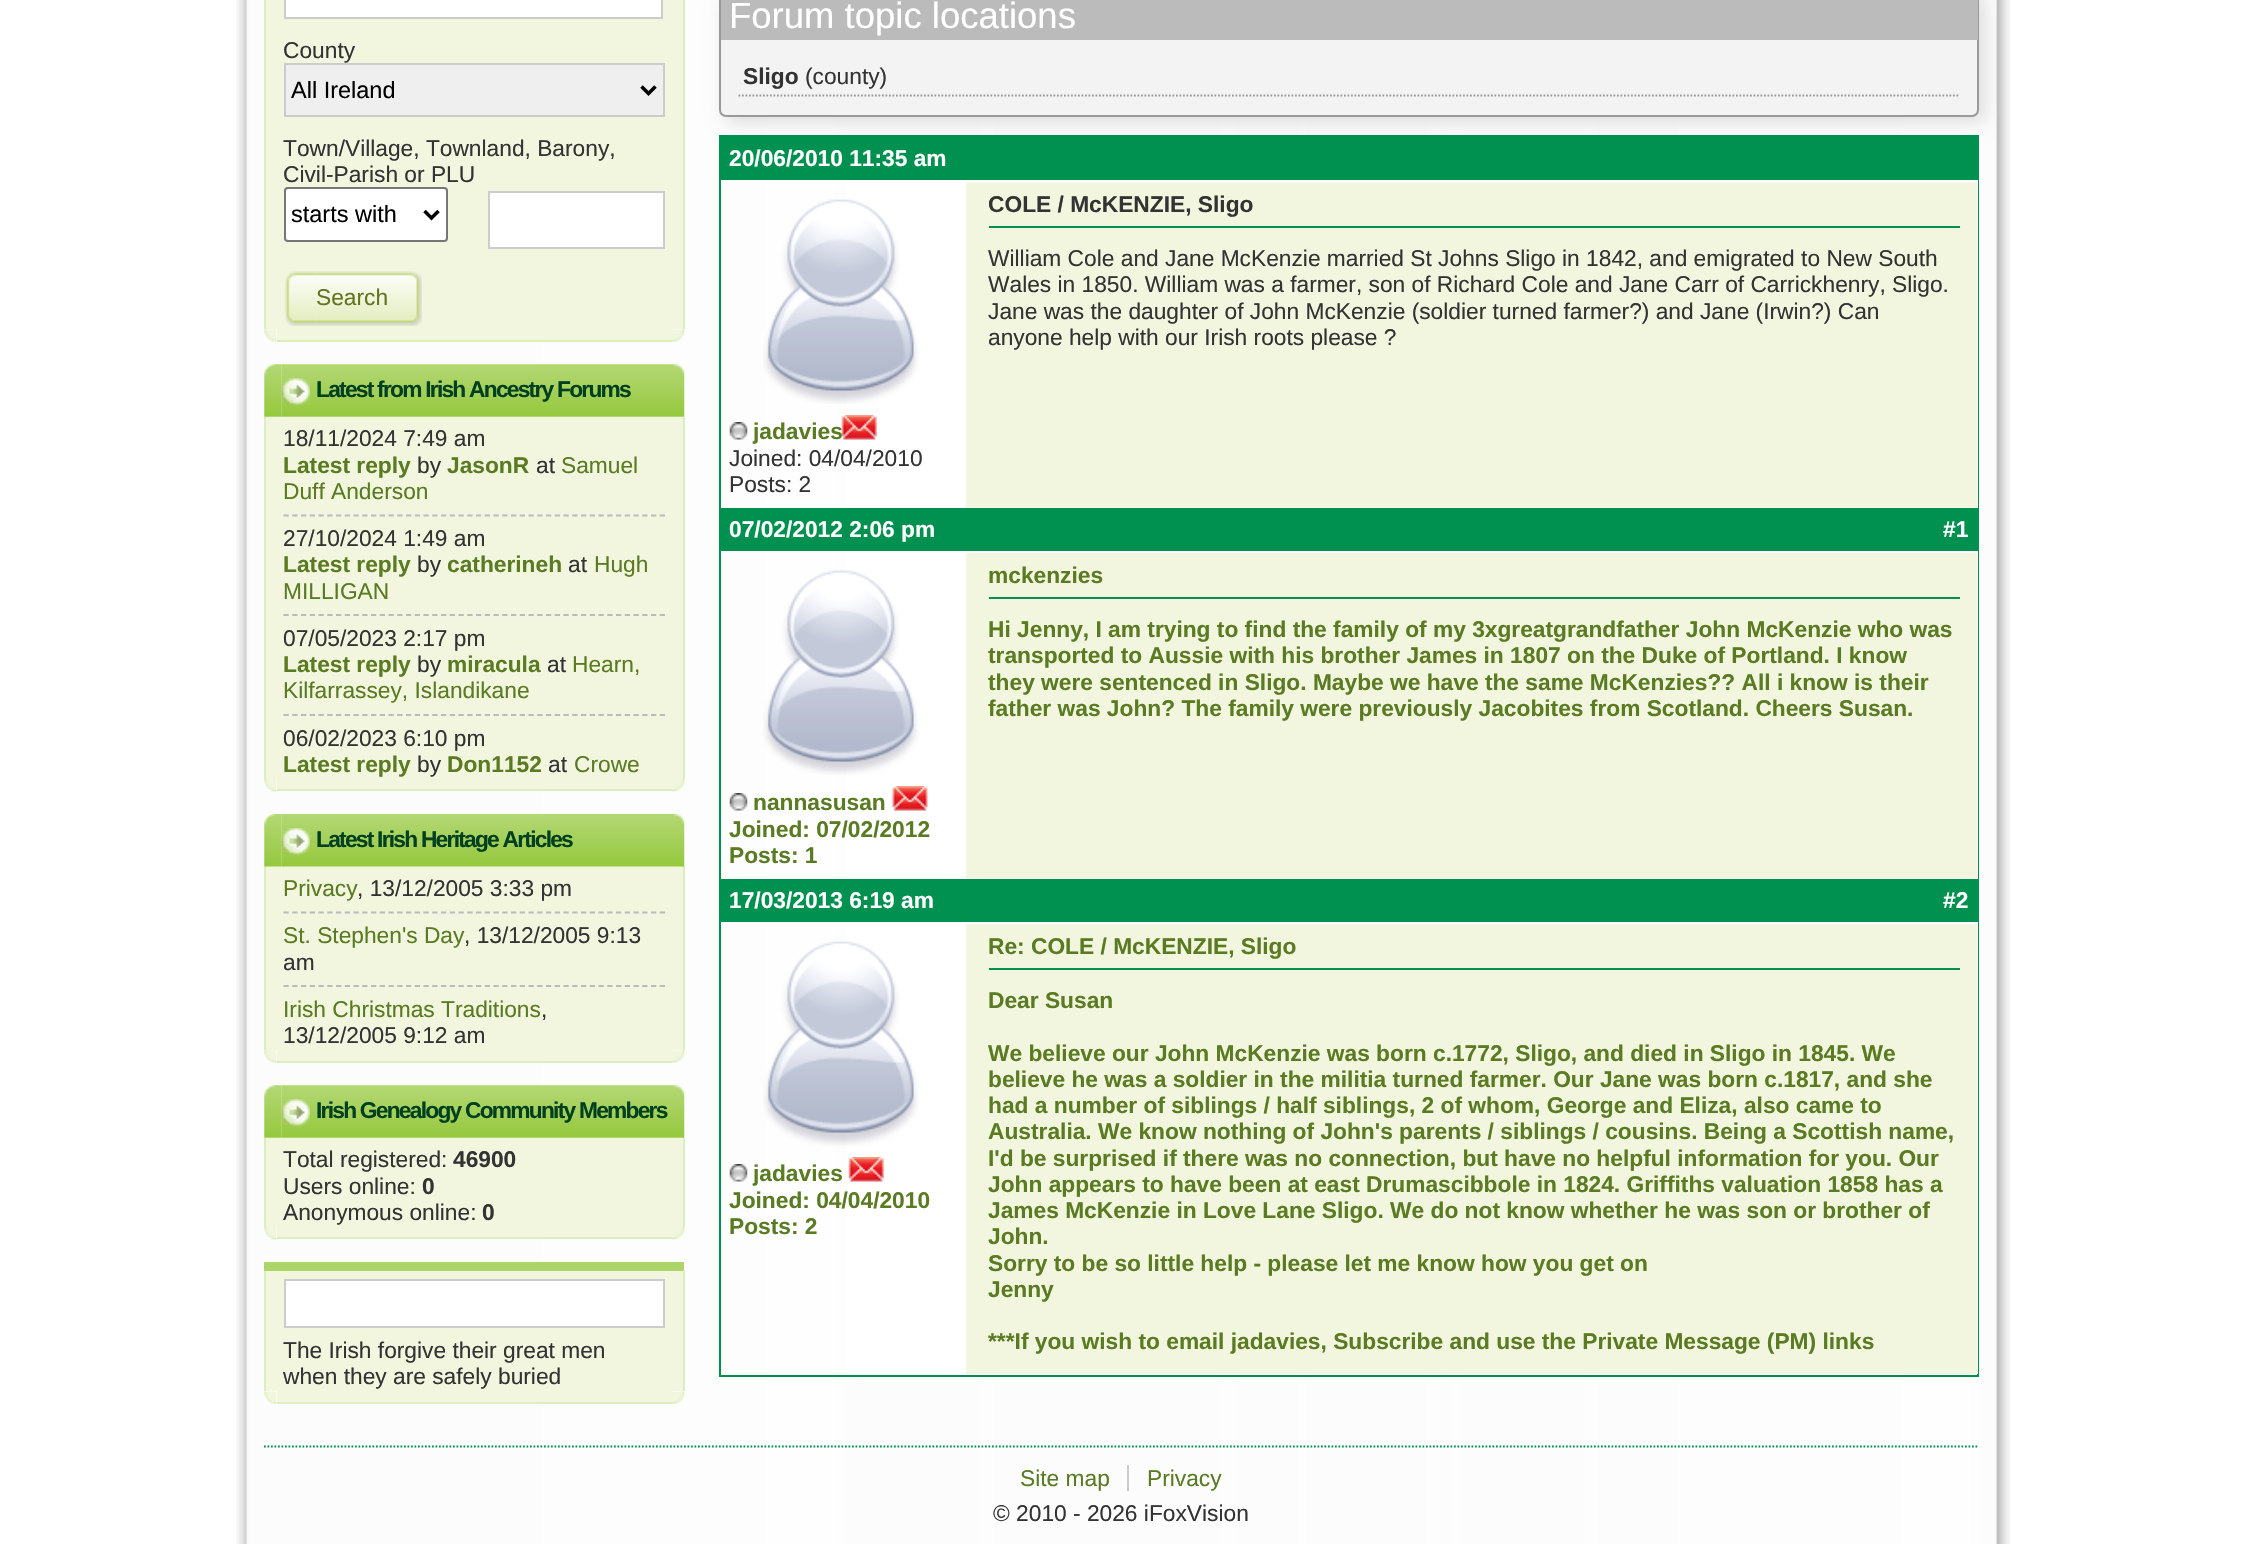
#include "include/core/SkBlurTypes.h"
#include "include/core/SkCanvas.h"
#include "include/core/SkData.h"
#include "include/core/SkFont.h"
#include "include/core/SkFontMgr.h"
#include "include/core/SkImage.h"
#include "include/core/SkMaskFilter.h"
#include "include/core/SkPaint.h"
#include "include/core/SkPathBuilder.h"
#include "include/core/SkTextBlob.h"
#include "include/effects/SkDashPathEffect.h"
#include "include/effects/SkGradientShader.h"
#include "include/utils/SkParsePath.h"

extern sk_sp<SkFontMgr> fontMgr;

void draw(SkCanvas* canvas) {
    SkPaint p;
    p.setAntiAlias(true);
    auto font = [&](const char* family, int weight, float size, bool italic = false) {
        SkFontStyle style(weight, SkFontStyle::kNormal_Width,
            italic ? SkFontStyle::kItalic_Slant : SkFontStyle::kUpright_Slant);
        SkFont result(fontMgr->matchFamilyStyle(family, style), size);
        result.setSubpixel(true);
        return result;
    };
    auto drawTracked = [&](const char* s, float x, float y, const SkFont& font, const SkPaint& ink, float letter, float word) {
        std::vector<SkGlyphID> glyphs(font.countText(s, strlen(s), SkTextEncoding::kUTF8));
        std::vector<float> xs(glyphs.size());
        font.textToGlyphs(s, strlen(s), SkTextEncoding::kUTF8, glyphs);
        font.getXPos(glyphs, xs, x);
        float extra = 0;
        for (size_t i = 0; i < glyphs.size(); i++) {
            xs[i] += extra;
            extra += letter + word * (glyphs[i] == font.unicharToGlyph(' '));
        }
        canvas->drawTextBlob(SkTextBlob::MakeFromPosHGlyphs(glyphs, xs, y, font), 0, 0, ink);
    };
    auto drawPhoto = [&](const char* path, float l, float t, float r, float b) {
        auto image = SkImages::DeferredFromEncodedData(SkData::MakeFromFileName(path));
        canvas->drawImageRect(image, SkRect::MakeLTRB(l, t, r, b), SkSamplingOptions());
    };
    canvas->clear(0xFFFFFFFF);
    drawPhoto("media/1.png", 236, 0, 2011, 1544);
    {
        const struct { float l, t, r, b; SkColor color; } items[] = {
            {266, 0, 683, 329, 0xFFF2F6DF},
            {683, 0, 685, 329, 0xFFDCEDBF},
            {264, 0, 266, 329, 0xFFDCEDBF},
        };
        for (auto [l, t, r, b, color] : items) {
            p.setColor(color);
            canvas->drawRect(SkRect::MakeLTRB(l, t, r, b), p);
        }
    }
    p.setColor(0xFFFFFFFF);
    canvas->drawRect(SkRect::MakeLTRB(285, -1, 662, 18), p);
    p.setStyle(SkPaint::kStroke_Style);
    p.setStrokeWidth(2);
    p.setColor(0xFFCCCCCC);
    canvas->drawRect(SkRect::MakeLTRB(285, -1, 662, 18), p);
    auto font1 = font("Liberation Sans", 400, 22.75f);
    p.setStyle(SkPaint::kFill_Style);
    p.setColor(0xFF333333);
    canvas->drawString("County", 283, 58, font1, p);
    p.setColor(0xFFEFEFEF);
    canvas->drawRect(SkRect::MakeLTRB(285, 64, 664, 116), p);
    p.setStyle(SkPaint::kStroke_Style);
    p.setColor(0xFFCCCCCC);
    canvas->drawRect(SkRect::MakeLTRB(285, 64, 664, 116), p);
    p.setStrokeWidth(3.5f);
    p.setColor(0xFF000000);
    canvas->drawPath(SkPathBuilder().moveTo(641.5f, 86.5f).lineTo(648.5f, 93.5f).lineTo(655.5f, 86.5f).detach(), p);
    auto font2 = font("Liberation Sans", 400, 23.5f);
    p.setStyle(SkPaint::kFill_Style);
    canvas->drawString("All Ireland", 291, 98, font2, p);
    p.setColor(0xFF333333);
    canvas->drawString("Town/Village, Townland, Barony,", 283, 156, font1, p);
    canvas->drawString("Civil-Parish or PLU", 283, 182, font1, p);
    p.setColor(0xFFFFFFFF);
    canvas->drawRoundRect(SkRect::MakeLTRB(285, 188, 447, 241), 3, 3, p);
    p.setStyle(SkPaint::kStroke_Style);
    p.setStrokeWidth(2);
    p.setColor(0xFF767676);
    canvas->drawRoundRect(SkRect::MakeLTRB(285, 188, 447, 241), 3, 3, p);
    p.setStrokeWidth(3.5f);
    p.setColor(0xFF000000);
    canvas->drawPath(SkPathBuilder().moveTo(424.5f, 211).lineTo(431.5f, 218).lineTo(438.5f, 211).detach(), p);
    p.setStyle(SkPaint::kFill_Style);
    canvas->drawString("starts with", 291, 222, font2, p);
    p.setColor(0xFFFFFFFF);
    canvas->drawRect(SkRect::MakeLTRB(489, 192, 664, 248), p);
    p.setStyle(SkPaint::kStroke_Style);
    p.setStrokeWidth(2);
    p.setColor(0xFFCCCCCC);
    canvas->drawRect(SkRect::MakeLTRB(489, 192, 664, 248), p);
    drawPhoto("media/2.png", 285, 271, 317, 326);
    drawPhoto("media/3.png", 316, 271, 422, 326);
    p.setStyle(SkPaint::kFill_Style);
    p.setColor(0xFF637420);
    canvas->drawString("Search", 316, 305, font1, p);
    p.setColor(0xFFFFFFFF);
    canvas->drawRect(SkRect::MakeLTRB(264, 329, 277, 341), p);
    drawPhoto("media/4.png", 264, 329, 277, 342);
    p.setColor(0xFFF2F6DF);
    canvas->drawRect(SkRect::MakeLTRB(277, 329, 672, 340), p);
    p.setColor(0xFFDCEDBF);
    canvas->drawRect(SkRect::MakeLTRB(277, 340, 672, 342), p);
    drawPhoto("media/5.png", 672, 329, 685, 342);
    p.setColor(0xFFFFFFFF);
    canvas->drawRect(SkRect::MakeLTRB(264, 364, 542, 417), p);
    drawPhoto("media/6.png", 264, 364, 282, 417);
    drawPhoto("media/7.png", 281, 364, 685, 417);
    drawPhoto("media/8.png", 281, 378, 310, 405);
    auto font3 = font("Liberation Sans", 700, 22.75f);
    p.setColor(0xFF004020);
    drawTracked("Latest from Irish Ancestry Forums", 316, 397, font3, p, -1.75f, 0);
    {
        const struct { float l, t, r, b; SkColor color; } items[] = {
            {266, 417, 683, 779, 0xFFF2F6DF},
            {683, 417, 685, 779, 0xFFDCEDBF},
            {264, 417, 266, 779, 0xFFDCEDBF},
        };
        for (auto [l, t, r, b, color] : items) {
            p.setColor(color);
            canvas->drawRect(SkRect::MakeLTRB(l, t, r, b), p);
        }
    }
    p.setColor(0xFF333333);
    canvas->drawString("18/11/2024 7:49 am", 283, 446, font1, p);
    p.setColor(0xFF5B7B23);
    canvas->drawString("Latest reply", 283, 473, font3, p);
    p.setColor(0xFF333333);
    canvas->drawString("by", 417, 473, font1, p);
    p.setColor(0xFF5B7B23);
    canvas->drawString("JasonR", 447, 473, font3, p);
    p.setColor(0xFF333333);
    canvas->drawString("at", 536, 473, font1, p);
    p.setColor(0xFF5B7B23);
    canvas->drawString("Samuel", 561, 473, font1, p);
    canvas->drawString("Duff Anderson", 283, 499, font1, p);
    p.setStyle(SkPaint::kStroke_Style);
    p.setStrokeWidth(1.8f);
    p.setColor(0xFFBBBBBB);
    p.setPathEffect(SkDashPathEffect::Make({{5.25f, 3.5f}}, 0));
    canvas->drawPath(SkPathBuilder().moveTo(283.5f, 515.5f).lineTo(665, 515.5f).detach(), p);
    p.setPathEffect(nullptr);
    p.setStyle(SkPaint::kFill_Style);
    p.setColor(0xFF333333);
    canvas->drawString("27/10/2024 1:49 am", 283, 546, font1, p);
    p.setColor(0xFF5B7B23);
    canvas->drawString("Latest reply", 283, 572, font3, p);
    p.setColor(0xFF333333);
    canvas->drawString("by", 417, 572, font1, p);
    p.setColor(0xFF5B7B23);
    canvas->drawString("catherineh", 447, 572, font3, p);
    p.setColor(0xFF333333);
    canvas->drawString("at", 568, 572, font1, p);
    p.setColor(0xFF5B7B23);
    canvas->drawString("Hugh", 594, 572, font1, p);
    canvas->drawString("MILLIGAN", 283, 599, font1, p);
    p.setStyle(SkPaint::kStroke_Style);
    p.setColor(0xFFBBBBBB);
    p.setPathEffect(SkDashPathEffect::Make({{5.25f, 3.5f}}, 0));
    canvas->drawPath(SkPathBuilder().moveTo(283.5f, 615).lineTo(665, 615).detach(), p);
    p.setPathEffect(nullptr);
    p.setStyle(SkPaint::kFill_Style);
    p.setColor(0xFF333333);
    canvas->drawString("07/05/2023 2:17 pm", 283, 646, font1, p);
    p.setColor(0xFF5B7B23);
    canvas->drawString("Latest reply", 283, 672, font3, p);
    p.setColor(0xFF333333);
    canvas->drawString("by", 417, 672, font1, p);
    p.setColor(0xFF5B7B23);
    canvas->drawString("miracula", 447, 672, font3, p);
    p.setColor(0xFF333333);
    canvas->drawString("at", 547, 672, font1, p);
    p.setColor(0xFF5B7B23);
    canvas->drawString("Hearn,", 572, 672, font1, p);
    canvas->drawString("Kilfarrassey, Islandikane", 283, 698, font1, p);
    p.setStyle(SkPaint::kStroke_Style);
    p.setColor(0xFFBBBBBB);
    p.setPathEffect(SkDashPathEffect::Make({{5.25f, 3.5f}}, 0));
    canvas->drawPath(SkPathBuilder().moveTo(283.5f, 715).lineTo(665, 715).detach(), p);
    p.setPathEffect(nullptr);
    p.setStyle(SkPaint::kFill_Style);
    p.setColor(0xFF333333);
    canvas->drawString("06/02/2023 6:10 pm", 283, 746, font1, p);
    p.setColor(0xFF5B7B23);
    canvas->drawString("Latest reply", 283, 772, font3, p);
    p.setColor(0xFF333333);
    canvas->drawString("by", 417, 772, font1, p);
    p.setColor(0xFF5B7B23);
    canvas->drawString("Don1152", 447, 772, font3, p);
    p.setColor(0xFF333333);
    canvas->drawString("at", 548, 772, font1, p);
    p.setColor(0xFF5B7B23);
    canvas->drawString("Crowe", 574, 772, font1, p);
    p.setColor(0xFFFFFFFF);
    canvas->drawRect(SkRect::MakeLTRB(264, 779, 277, 791), p);
    drawPhoto("media/9.png", 264, 779, 277, 792);
    p.setColor(0xFFF2F6DF);
    canvas->drawRect(SkRect::MakeLTRB(277, 779, 672, 789), p);
    p.setColor(0xFFDCEDBF);
    canvas->drawRect(SkRect::MakeLTRB(277, 789, 672, 791), p);
    drawPhoto("media/10.png", 672, 779, 685, 792);
    {
        const struct { float l, t, r, b; SkColor color; } items[] = {
            {264, 814, 282, 866, 0xFFFFFFFF},
            {266, 866, 683, 1050, 0xFFF2F6DF},
            {264, 866, 266, 1050, 0xFFDCEDBF},
        };
        for (auto [l, t, r, b, color] : items) {
            p.setColor(color);
            canvas->drawRect(SkRect::MakeLTRB(l, t, r, b), p);
        }
    }
    drawPhoto("media/11.png", 264, 814, 282, 867);
    canvas->drawRect(SkRect::MakeLTRB(683, 866, 685, 1050), p);
    drawPhoto("media/12.png", 281, 814, 685, 867);
    drawPhoto("media/13.png", 281, 828, 310, 855);
    p.setColor(0xFF004020);
    drawTracked("Latest Irish Heritage Articles", 316, 847, font3, p, -1.75f, 0);
    p.setColor(0xFF5B7B23);
    canvas->drawString("Privacy", 283, 896, font1, p);
    p.setColor(0xFF333333);
    canvas->drawString(", 13/12/2005 3:33 pm", 357, 896, font1, p);
    p.setStyle(SkPaint::kStroke_Style);
    p.setColor(0xFFBBBBBB);
    p.setPathEffect(SkDashPathEffect::Make({{5.25f, 3.5f}}, 0));
    canvas->drawPath(SkPathBuilder().moveTo(283.5f, 912.5f).lineTo(665, 912.5f).detach(), p);
    p.setPathEffect(nullptr);
    p.setStyle(SkPaint::kFill_Style);
    p.setColor(0xFF5B7B23);
    canvas->drawString("St. Stephen's Day", 283, 943, font1, p);
    p.setColor(0xFF333333);
    canvas->drawString(", 13/12/2005 9:13", 464, 943, font1, p);
    canvas->drawString("am", 283, 970, font1, p);
    p.setStyle(SkPaint::kStroke_Style);
    p.setColor(0xFFBBBBBB);
    p.setPathEffect(SkDashPathEffect::Make({{5.25f, 3.5f}}, 0));
    canvas->drawPath(SkPathBuilder().moveTo(283.5f, 986).lineTo(665, 986).detach(), p);
    p.setPathEffect(nullptr);
    p.setStyle(SkPaint::kFill_Style);
    p.setColor(0xFF5B7B23);
    canvas->drawString("Irish Christmas Traditions", 283, 1017, font1, p);
    p.setColor(0xFF333333);
    canvas->drawString(",", 541, 1017, font1, p);
    canvas->drawString("13/12/2005 9:12 am", 283, 1043, font1, p);
    p.setColor(0xFFFFFFFF);
    canvas->drawRect(SkRect::MakeLTRB(264, 1050, 277, 1062), p);
    drawPhoto("media/4.png", 264, 1050, 277, 1063);
    p.setColor(0xFFF2F6DF);
    canvas->drawRect(SkRect::MakeLTRB(277, 1050, 672, 1061), p);
    p.setColor(0xFFDCEDBF);
    canvas->drawRect(SkRect::MakeLTRB(277, 1061, 672, 1063), p);
    drawPhoto("media/5.png", 672, 1050, 685, 1063);
    p.setColor(0xFFFFFFFF);
    canvas->drawRect(SkRect::MakeLTRB(264, 1085, 542, 1138), p);
    drawPhoto("media/6.png", 264, 1085, 282, 1138);
    drawPhoto("media/7.png", 281, 1085, 685, 1138);
    drawPhoto("media/8.png", 281, 1099, 310, 1126);
    p.setColor(0xFF004020);
    drawTracked("Irish Genealogy Community Members", 316, 1118, font3, p, -1.75f, 0);
    {
        const struct { float l, t, r, b; SkColor color; } items[] = {
            {266, 1138, 683, 1227, 0xFFF2F6DF},
            {683, 1138, 685, 1227, 0xFFDCEDBF},
            {264, 1138, 266, 1227, 0xFFDCEDBF},
        };
        for (auto [l, t, r, b, color] : items) {
            p.setColor(color);
            canvas->drawRect(SkRect::MakeLTRB(l, t, r, b), p);
        }
    }
    p.setColor(0xFF333333);
    canvas->drawString("Total registered:", 283, 1167, font1, p);
    canvas->drawString("46900", 453, 1167, font3, p);
    canvas->drawString("Users online:", 283, 1194, font1, p);
    canvas->drawString("0", 422, 1194, font3, p);
    canvas->drawString("Anonymous online:", 283, 1220, font1, p);
    canvas->drawString("0", 482, 1220, font3, p);
    p.setColor(0xFFFFFFFF);
    canvas->drawRect(SkRect::MakeLTRB(264, 1227, 277, 1239), p);
    drawPhoto("media/9.png", 264, 1227, 277, 1240);
    p.setColor(0xFFF2F6DF);
    canvas->drawRect(SkRect::MakeLTRB(277, 1227, 672, 1237), p);
    p.setColor(0xFFDCEDBF);
    canvas->drawRect(SkRect::MakeLTRB(277, 1237, 672, 1239), p);
    drawPhoto("media/10.png", 672, 1227, 685, 1240);
    {
        const struct { float l, t, r, b; SkColor color; } items[] = {
            {264, 1262, 684, 1271, 0xFFADD569},
            {266, 1271, 683, 1391, 0xFFF2F6DF},
            {683, 1271, 685, 1391, 0xFFDCEDBF},
            {264, 1271, 266, 1391, 0xFFDCEDBF},
        };
        for (auto [l, t, r, b, color] : items) {
            p.setColor(color);
            canvas->drawRect(SkRect::MakeLTRB(l, t, r, b), p);
        }
    }
    p.setColor(0xFFFFFFFF);
    canvas->drawRect(SkRect::MakeLTRB(285, 1280, 664, 1327), p);
    p.setStyle(SkPaint::kStroke_Style);
    p.setStrokeWidth(2);
    p.setColor(0xFFCCCCCC);
    canvas->drawRect(SkRect::MakeLTRB(285, 1280, 664, 1327), p);
    p.setStyle(SkPaint::kFill_Style);
    p.setColor(0xFF333333);
    canvas->drawString("The Irish forgive their great men", 283, 1358, font1, p);
    canvas->drawString("when they are safely buried", 283, 1384, font1, p);
    p.setColor(0xFFFFFFFF);
    canvas->drawRect(SkRect::MakeLTRB(264, 1391, 277, 1404), p);
    drawPhoto("media/14.png", 264, 1391, 277, 1404);
    p.setColor(0xFFF2F6DF);
    canvas->drawRect(SkRect::MakeLTRB(277, 1391, 672, 1402), p);
    p.setColor(0xFFDCEDBF);
    canvas->drawRect(SkRect::MakeLTRB(277, 1402, 672, 1404), p);
    drawPhoto("media/15.png", 672, 1391, 685, 1404);
    p.setColor(0xFFDDDDDD);
    p.setMaskFilter(SkMaskFilter::MakeBlur(kNormal_SkBlurStyle, 9));
    canvas->drawRoundRect(SkRect::MakeLTRB(725, -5, 1985, 123), 7, 7, p);
    p.setMaskFilter(nullptr);
    p.setColor(0xFFF3F3F3);
    canvas->drawRoundRect(SkRect::MakeLTRB(720, -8, 1978, 116), 6, 6, p);
    p.setStyle(SkPaint::kStroke_Style);
    p.setColor(0xFF999999);
    canvas->drawRoundRect(SkRect::MakeLTRB(720, -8, 1978, 116), 6, 6, p);
    p.setStyle(SkPaint::kFill_Style);
    p.setColor(0xFFBBBBBB);
    canvas->drawRect(SkRect::MakeLTRB(721, 0, 1978, 40), p);
    auto font4 = font("Liberation Sans", 400, 36.5f);
    p.setColor(0xFFFFFFFF);
    canvas->drawString("Forum topic locations", 729, 28, font4, p);
    p.setStyle(SkPaint::kStroke_Style);
    p.setStrokeWidth(1.8f);
    p.setColor(0xFF999999);
    p.setPathEffect(SkDashPathEffect::Make({{1.75f, 1.75f}}, 0));
    canvas->drawPath(SkPathBuilder().moveTo(738.5f, 95.5f).lineTo(1960, 95.5f).detach(), p);
    p.setPathEffect(nullptr);
    p.setStyle(SkPaint::kFill_Style);
    p.setColor(0xFF333333);
    canvas->drawString("Sligo", 743, 84, font3, p);
    canvas->drawString("(county)", 805, 84, font1, p);
    p.setStyle(SkPaint::kStroke_Style);
    p.setStrokeWidth(2);
    p.setColor(0xFF009050);
    canvas->drawRect(SkRect::MakeLTRB(720, 136, 1978, 1376), p);
    p.setStyle(SkPaint::kFill_Style);
    canvas->drawRect(SkRect::MakeLTRB(721, 137, 1977, 180), p);
    p.setColor(0xFFFFFFFF);
    canvas->drawRect(SkRect::MakeLTRB(847, 180, 1978, 508), p);
    canvas->drawString("20/06/2010 11:35 am", 729, 166, font3, p);
    drawPhoto("media/16.png", 965, 182, 1978, 508);
    p.setColor(0xFF009050);
    canvas->drawRect(SkRect::MakeLTRB(989, 226, 1960, 228), p);
    p.setColor(0xFF333333);
    canvas->drawString("COLE / McKENZIE, Sligo", 988, 212, font3, p);
    {
        const struct { const char* s; float x, y; } items[] = {
            {"William Cole and Jane McKenzie married St Johns Sligo in 1842, and emigrated to New South", 988, 266},
            {"Wales in 1850. William was a farmer, son of Richard Cole and Jane Carr of Carrickhenry, Sligo.", 988, 292},
            {"Jane was the daughter of John McKenzie (soldier turned farmer?) and Jane (Irwin?) Can", 988, 319},
            {"anyone help with our Irish roots please ?", 988, 345},
        };
        for (auto [s, x, y] : items) {
            canvas->drawString(s, x, y, font1, p);
        }
    }
    drawPhoto("media/17.png", 763, 199, 919, 404);
    drawPhoto("media/18.png", 729, 422, 748, 440);
    p.setColor(0xFF5B7B23);
    canvas->drawString("jadavies", 753, 439, font3, p);
    drawPhoto("media/19.png", 841, 415, 877, 440);
    p.setColor(0xFF333333);
    canvas->drawString("Joined: 04/04/2010", 729, 466, font1, p);
    canvas->drawString("Posts: 2", 729, 492, font1, p);
    p.setColor(0xFF009050);
    canvas->drawRect(SkRect::MakeLTRB(721, 508, 1977, 551), p);
    p.setColor(0xFFFFFFFF);
    canvas->drawRect(SkRect::MakeLTRB(847, 551, 1978, 879), p);
    canvas->drawString("07/02/2012 2:06 pm", 729, 537, font3, p);
    canvas->drawString("#1", 1943, 537, font3, p);
    drawPhoto("media/16.png", 965, 553, 1978, 879);
    p.setColor(0xFF009050);
    canvas->drawRect(SkRect::MakeLTRB(989, 597, 1960, 599), p);
    p.setColor(0xFF5B7B23);
    {
        const struct { const char* s; float x, y; } items[] = {
            {"mckenzies", 988, 583},
            {"Hi Jenny, I am trying to find the family of my 3xgreatgrandfather John McKenzie who was", 988, 637},
            {"transported to Aussie with his brother James in 1807 on the Duke of Portland. I know", 988, 663},
            {"they were sentenced in Sligo. Maybe we have the same McKenzies?\077 All i know is their", 988, 690},
            {"father was John? The family were previously Jacobites from Scotland. Cheers Susan.", 988, 716},
        };
        for (auto [s, x, y] : items) {
            canvas->drawString(s, x, y, font3, p);
        }
    }
    drawPhoto("media/17.png", 763, 570, 919, 775);
    drawPhoto("media/18.png", 729, 793, 748, 811);
    canvas->drawString("nannasusan", 753, 810, font3, p);
    drawPhoto("media/20.png", 892, 786, 928, 811);
    canvas->drawString("Joined: 07/02/2012", 729, 837, font3, p);
    canvas->drawString("Posts: 1", 729, 863, font3, p);
    p.setColor(0xFF009050);
    canvas->drawRect(SkRect::MakeLTRB(721, 879, 1977, 922), p);
    p.setColor(0xFFFFFFFF);
    canvas->drawRect(SkRect::MakeLTRB(847, 922, 1978, 1374), p);
    canvas->drawString("17/03/2013 6:19 am", 729, 908, font3, p);
    canvas->drawString("#2", 1943, 908, font3, p);
    drawPhoto("media/21.png", 965, 924, 1978, 1374);
    drawPhoto("media/17.png", 763, 941, 919, 1146);
    drawPhoto("media/18.png", 729, 1164, 748, 1182);
    p.setColor(0xFF5B7B23);
    canvas->drawString("jadavies", 753, 1181, font3, p);
    drawPhoto("media/22.png", 848, 1157, 884, 1182);
    canvas->drawString("Joined: 04/04/2010", 729, 1208, font3, p);
    canvas->drawString("Posts: 2", 729, 1234, font3, p);
    p.setColor(0xFF009050);
    canvas->drawRect(SkRect::MakeLTRB(989, 968, 1960, 970), p);
    p.setColor(0xFF5B7B23);
    {
        const struct { const char* s; float x, y; } items[] = {
            {"Re: COLE / McKENZIE, Sligo", 988, 954},
            {"Dear Susan", 988, 1008},
            {"We believe our John McKenzie was born c.1772, Sligo, and died in Sligo in 1845. We", 988, 1061},
            {"believe he was a soldier in the militia turned farmer. Our Jane was born c.1817, and she", 988, 1087},
            {"had a number of siblings / half siblings, 2 of whom, George and Eliza, also came to", 988, 1113},
            {"Australia. We know nothing of John's parents / siblings / cousins. Being a Scottish name,", 988, 1139},
            {"I'd be surprised if there was no connection, but have no helpful information for you. Our", 988, 1166},
            {"John appears to have been at east Drumascibbole in 1824. Griffiths valuation 1858 has a", 988, 1192},
            {"James McKenzie in Love Lane Sligo. We do not know whether he was son or brother of", 988, 1218},
            {"John.", 988, 1244},
            {"Sorry to be so little help - please let me know how you get on", 988, 1271},
            {"Jenny", 988, 1297},
            {"***If you wish to email jadavies, Subscribe and use the Private Message (PM) links", 988, 1349},
        };
        for (auto [s, x, y] : items) {
            canvas->drawString(s, x, y, font3, p);
        }
    }
    p.setStyle(SkPaint::kStroke_Style);
    p.setStrokeWidth(1.8f);
    p.setColor(0xFF009050);
    p.setPathEffect(SkDashPathEffect::Make({{1.75f, 1.75f}}, 0));
    canvas->drawPath(SkPathBuilder().moveTo(264, 1446.5f).lineTo(1979, 1446.5f).detach(), p);
    p.setPathEffect(nullptr);
    p.setStyle(SkPaint::kFill_Style);
    p.setColor(0xFF5B7B23);
    canvas->drawString("Site map", 1020, 1486, font1, p);
    p.setColor(0xFFCCCCCC);
    canvas->drawRect(SkRect::MakeLTRB(1127, 1465, 1129, 1491), p);
    p.setColor(0xFF5B7B23);
    canvas->drawString("Privacy", 1147, 1486, font1, p);
    p.setColor(0xFF333333);
    canvas->drawString("© 2010 - 2026 iFoxVision", 993, 1521, font1, p);
}
